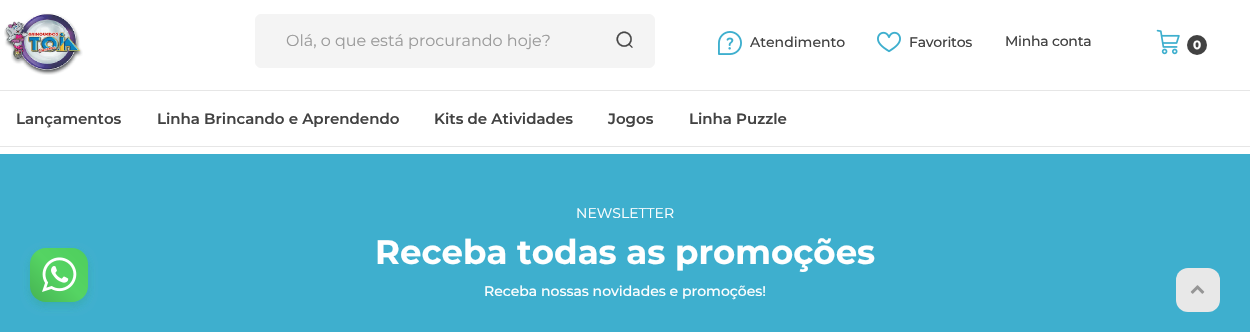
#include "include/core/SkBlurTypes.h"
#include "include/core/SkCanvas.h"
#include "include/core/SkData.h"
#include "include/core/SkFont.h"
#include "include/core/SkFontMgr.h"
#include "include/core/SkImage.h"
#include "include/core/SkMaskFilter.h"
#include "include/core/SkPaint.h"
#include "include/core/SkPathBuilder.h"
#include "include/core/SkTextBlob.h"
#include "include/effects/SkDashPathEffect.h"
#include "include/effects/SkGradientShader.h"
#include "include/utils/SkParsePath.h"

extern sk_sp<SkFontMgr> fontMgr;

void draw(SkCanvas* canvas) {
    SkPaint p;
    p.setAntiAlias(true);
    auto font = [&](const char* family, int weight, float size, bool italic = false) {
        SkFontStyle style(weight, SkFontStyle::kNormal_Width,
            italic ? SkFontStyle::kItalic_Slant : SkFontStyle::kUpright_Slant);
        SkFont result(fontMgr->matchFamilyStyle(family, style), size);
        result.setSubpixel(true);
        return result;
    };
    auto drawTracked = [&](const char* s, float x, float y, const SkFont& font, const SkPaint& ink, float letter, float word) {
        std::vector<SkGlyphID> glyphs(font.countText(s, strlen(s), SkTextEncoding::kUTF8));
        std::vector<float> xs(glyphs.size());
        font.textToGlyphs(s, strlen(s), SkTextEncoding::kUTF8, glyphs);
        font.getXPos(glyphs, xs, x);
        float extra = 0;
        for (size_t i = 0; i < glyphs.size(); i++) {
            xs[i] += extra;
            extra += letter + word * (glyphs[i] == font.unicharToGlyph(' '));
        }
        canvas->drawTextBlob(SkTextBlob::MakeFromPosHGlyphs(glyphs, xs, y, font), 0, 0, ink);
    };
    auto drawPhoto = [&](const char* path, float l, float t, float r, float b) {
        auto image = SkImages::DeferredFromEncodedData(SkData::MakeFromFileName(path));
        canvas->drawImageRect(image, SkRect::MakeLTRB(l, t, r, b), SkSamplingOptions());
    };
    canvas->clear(0xFFFFFFFF);
    drawPhoto("media/1.png", 4, 13, 83, 75);
    p.setColor(0xFFF4F4F4);
    canvas->drawRoundRect(SkRect::MakeLTRB(255.5f, 14.5f, 654.5f, 67.5f), 5.5f, 5.5f, p);
    p.setStyle(SkPaint::kStroke_Style);
    p.setStrokeWidth(1);
    canvas->drawRoundRect(SkRect::MakeLTRB(255.5f, 14.5f, 654.5f, 67.5f), 5.5f, 5.5f, p);
    auto font1 = font("Montserrat", 400, 16);
    p.setStyle(SkPaint::kFill_Style);
    p.setColor(0xFF9B9B9B);
    canvas->drawString("Olá, o que está procurando hoje?", 286, 46, font1, p);
    drawPhoto("media/2.png", 616, 31, 633, 48);
    drawPhoto("media/3.png", 718, 31, 742, 55);
    auto font2 = font("Montserrat", 500, 14);
    p.setColor(0xFF424242);
    canvas->drawString("Atendimento", 750, 47, font2, p);
    drawPhoto("media/4.png", 877, 31, 901, 53);
    drawTracked("Favoritos", 909, 47, font2, p, -0.25f, 0);
    drawTracked("Minha conta", 1005, 46, font2, p, -0.25f, 0);
    drawPhoto("media/5.png", 1156, 29, 1180, 55);
    canvas->drawCircle(1197, 45, 10, p);
    auto font3 = font("Montserrat", 700, 12);
    p.setColor(0xFFFFFFFF);
    canvas->drawString("0", 1193, 49, font3, p);
    p.setColor(0xFFE6E6E6);
    canvas->drawRect(SkRect::MakeLTRB(0, 90, 1250, 91), p);
    canvas->drawRect(SkRect::MakeLTRB(0, 146, 1250, 147), p);
    auto font4 = font("Montserrat", 600, 15);
    p.setColor(0xFF424242);
    {
        const struct { const char* s; float x, y; } items[] = {
            {"Lançamentos", 16, 124},
            {"Linha Brincando e Aprendendo", 157, 124},
            {"Kits de Atividades", 434, 124},
            {"Jogos", 608, 124},
            {"Linha Puzzle", 689, 124},
        };
        for (auto [s, x, y] : items) {
            canvas->drawString(s, x, y, font4, p);
        }
    }
    p.setColor(0xFF3EAFCE);
    canvas->drawRect(SkRect::MakeLTRB(0, 154, 1250, 332), p);
    auto font5 = font("Montserrat", 400, 14);
    p.setColor(0xFFFFFFFF);
    canvas->drawString("NEWSLETTER", 576, 218, font5, p);
    auto font6 = font("Montserrat", 700, 34);
    canvas->drawString("Receba todas as promoções", 375, 264, font6, p);
    canvas->drawString("Receba nossas novidades e promoções!", 484, 296, font2, p);
    p.setColor(0x2129A259);
    p.setMaskFilter(SkMaskFilter::MakeBlur(kNormal_SkBlurStyle, 4));
    canvas->drawRoundRect(SkRect::MakeLTRB(30, 252, 88, 306), 16, 16, p);
    p.setMaskFilter(nullptr);
    p.setMaskFilter(SkMaskFilter::MakeBlur(kNormal_SkBlurStyle, 4));
    canvas->drawRoundRect(SkRect::MakeLTRB(30, 252, 88, 306), 16, 16, p);
    p.setMaskFilter(nullptr);
    {
        const SkColor colors[] = {0xFF46B352, 0xFF55D463, 0xFF4FCE5D};
        const float stops[] = {0, 0.5f, 1};
        const SkPoint ends[] = {{31, 303}, {87, 247}};
        p.setShader(SkGradientShader::MakeLinear(ends, colors, stops, 3, SkTileMode::kClamp));
        p.setAlpha(255);
    }
    canvas->drawRoundRect(SkRect::MakeLTRB(30, 248, 88, 302), 16, 16, p);
    drawPhoto("media/6.png", 42, 257, 77, 292);
    p.setShader(nullptr);
    p.setColor(0xFFE8E8E8);
    canvas->drawRoundRect(SkRect::MakeLTRB(1176, 268, 1220, 312), 12, 12, p);
    drawPhoto("media/7.png", 1190, 285, 1205, 294);
}
